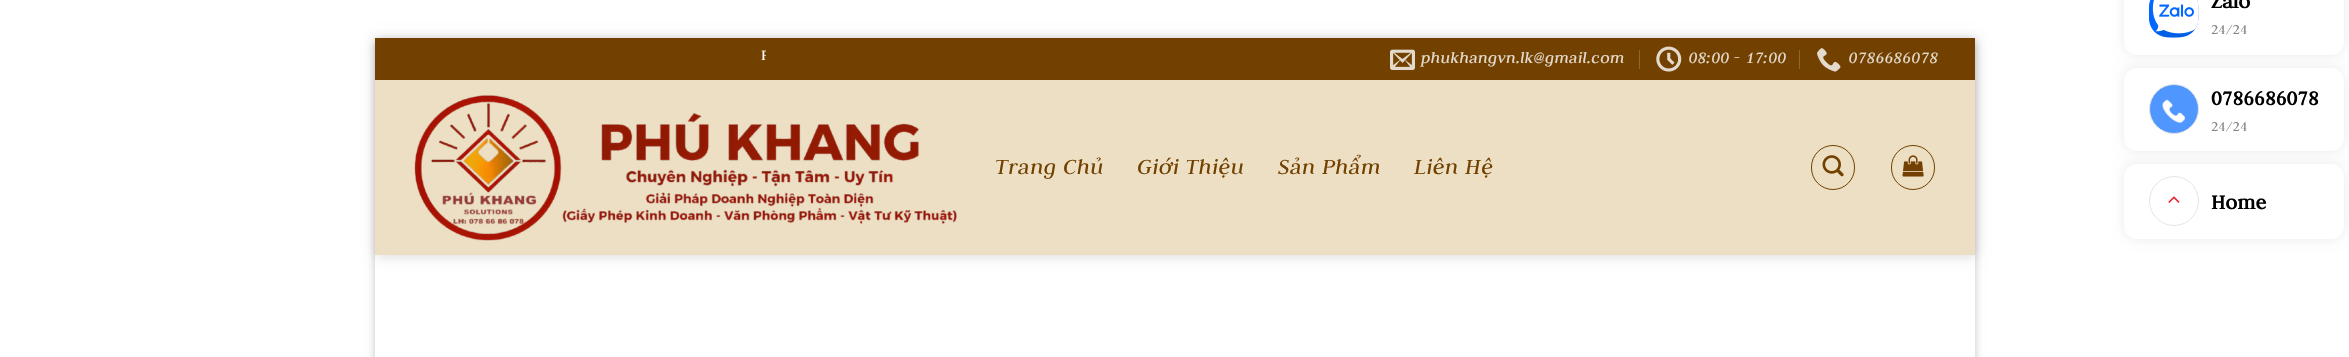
#include "include/core/SkBlurTypes.h"
#include "include/core/SkCanvas.h"
#include "include/core/SkData.h"
#include "include/core/SkFont.h"
#include "include/core/SkFontMgr.h"
#include "include/core/SkImage.h"
#include "include/core/SkMaskFilter.h"
#include "include/core/SkPaint.h"
#include "include/core/SkPathBuilder.h"
#include "include/core/SkTextBlob.h"
#include "include/effects/SkDashPathEffect.h"
#include "include/effects/SkGradientShader.h"
#include "include/utils/SkParsePath.h"

extern sk_sp<SkFontMgr> fontMgr;

void draw(SkCanvas* canvas) {
    SkPaint p;
    p.setAntiAlias(true);
    auto font = [&](const char* family, int weight, float size, bool italic = false) {
        SkFontStyle style(weight, SkFontStyle::kNormal_Width,
            italic ? SkFontStyle::kItalic_Slant : SkFontStyle::kUpright_Slant);
        SkFont result(fontMgr->matchFamilyStyle(family, style), size);
        result.setSubpixel(true);
        return result;
    };
    auto drawTracked = [&](const char* s, float x, float y, const SkFont& font, const SkPaint& ink, float letter, float word) {
        std::vector<SkGlyphID> glyphs(font.countText(s, strlen(s), SkTextEncoding::kUTF8));
        std::vector<float> xs(glyphs.size());
        font.textToGlyphs(s, strlen(s), SkTextEncoding::kUTF8, glyphs);
        font.getXPos(glyphs, xs, x);
        float extra = 0;
        for (size_t i = 0; i < glyphs.size(); i++) {
            xs[i] += extra;
            extra += letter + word * (glyphs[i] == font.unicharToGlyph(' '));
        }
        canvas->drawTextBlob(SkTextBlob::MakeFromPosHGlyphs(glyphs, xs, y, font), 0, 0, ink);
    };
    auto drawPhoto = [&](const char* path, float l, float t, float r, float b) {
        auto image = SkImages::DeferredFromEncodedData(SkData::MakeFromFileName(path));
        canvas->drawImageRect(image, SkRect::MakeLTRB(l, t, r, b), SkSamplingOptions());
    };
    canvas->clear(0xFFFFFFFF);
    canvas->save();
    canvas->clipPath(SkPathBuilder(SkPathFillType::kEvenOdd).moveTo(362, 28).lineTo(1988, 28).lineTo(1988, 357).lineTo(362, 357).close().moveTo(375, 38).lineTo(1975, 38).lineTo(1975, 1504).lineTo(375, 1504).close().detach(), true);
    p.setColor(0x3B000000);
    p.setMaskFilter(SkMaskFilter::MakeBlur(kNormal_SkBlurStyle, 4));
    canvas->drawRect(SkRect::MakeLTRB(375, 41, 1975, 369), p);
    p.setMaskFilter(nullptr);
    canvas->restore();
    p.setColor(0x26000000);
    p.setMaskFilter(SkMaskFilter::MakeBlur(kNormal_SkBlurStyle, 6));
    canvas->drawRect(SkRect::MakeLTRB(376, 39, 1976, 256), p);
    p.setMaskFilter(nullptr);
    p.setColor(0xFF724100);
    canvas->drawRect(SkRect::MakeLTRB(375, 38, 1975, 80), p);
    canvas->save();
    canvas->clipRect(SkRect::MakeLTRB(413, 41, 766, 69));
    auto font1 = font("Judson", 400, 16);
    p.setColor(0xFFFFFFFF);
    canvas->drawString("P", 761, 60, font1, p);
    canvas->restore();
    drawPhoto("media/1.png", 1390, 49, 1415, 70);
    auto font2 = font("Judson", 400, 17.6f, true);
    p.setColor(0xFFE3D9CC);
    drawTracked("phukhangvn.lk@gmail.com", 1421, 63, font2, p, 0.35f, 0);
    p.setColor(0xFF8E6733);
    canvas->drawRect(SkRect::MakeLTRB(1639, 50, 1640, 69), p);
    drawPhoto("media/2.png", 1656, 46, 1682, 72);
    p.setColor(0xFFE3D9CC);
    drawTracked("08:00 - 17:00", 1688, 63, font2, p, 0.35f, 0);
    p.setColor(0xFF8E6733);
    canvas->drawRect(SkRect::MakeLTRB(1799, 50, 1800, 69), p);
    drawPhoto("media/3.png", 1817, 48, 1841, 72);
    p.setColor(0xFFE3D9CC);
    drawTracked("0786686078", 1848, 63, font2, p, 0.35f, 0);
    p.setColor(0xFFECDFC3);
    canvas->drawRect(SkRect::MakeLTRB(375, 80, 1975, 255), p);
    drawPhoto("media/4.png", 414, 95, 957, 241);
    auto font3 = font("Judson", 400, 24, true);
    p.setColor(0xFF724100);
    {
        const struct { const char* s; float x, y; } items[] = {
            {"Trang Chủ", 995, 174},
            {"Giới Thiệu", 1137, 174},
            {"Sản Phẩm", 1278, 174},
            {"Liên Hệ", 1414, 174},
        };
        for (auto [s, x, y] : items) {
            drawTracked(s, x, y, font3, p, 0.5f, 0);
        }
    }
    p.setStyle(SkPaint::kStroke_Style);
    p.setStrokeWidth(1);
    canvas->drawRoundRect(SkRect::MakeLTRB(1811.5f, 145.5f, 1854.5f, 189.5f), 21.5f, 21.5f, p);
    drawPhoto("media/5.png", 1822, 155, 1844, 177);
    canvas->drawRoundRect(SkRect::MakeLTRB(1891.5f, 145.5f, 1934.5f, 189.5f), 21.5f, 21.5f, p);
    drawPhoto("media/6.png", 1902, 155, 1924, 177);
    p.setStyle(SkPaint::kFill_Style);
    p.setColor(0x14000000);
    p.setMaskFilter(SkMaskFilter::MakeBlur(kNormal_SkBlurStyle, 6));
    canvas->drawRoundRect(SkRect::MakeLTRB(2124, -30, 2344, 55), 13, 13, p);
    p.setMaskFilter(nullptr);
    p.setColor(0xFFFFFFFF);
    canvas->drawRoundRect(SkRect::MakeLTRB(2124, -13, 2344, 55), 13, 13, p);
    drawPhoto("media/7.png", 2149, 0, 2199, 38);
    auto font4 = font("Judson", 700, 22);
    p.setColor(0xFF000000);
    canvas->drawString("Zalo", 2211, 8, font4, p);
    auto font5 = font("Judson", 400, 15);
    p.setColor(0xFF868686);
    canvas->drawString("24/24", 2211, 34, font5, p);
    p.setColor(0x14000000);
    p.setMaskFilter(SkMaskFilter::MakeBlur(kNormal_SkBlurStyle, 6));
    canvas->drawRoundRect(SkRect::MakeLTRB(2124, 68, 2344, 151), 13, 13, p);
    p.setMaskFilter(nullptr);
    p.setColor(0xFFFFFFFF);
    canvas->drawRoundRect(SkRect::MakeLTRB(2124, 68, 2344, 151), 13, 13, p);
    p.setColor(0xFF4F97FF);
    canvas->drawCircle(2174, 109, 24.5f, p);
    p.setStyle(SkPaint::kStroke_Style);
    p.setColor(0xFFE5E5E5);
    canvas->drawCircle(2174, 109, 24.5f, p);
    drawPhoto("media/8.png", 2162, 99, 2186, 123);
    p.setStyle(SkPaint::kFill_Style);
    p.setColor(0xFF000000);
    canvas->drawString("0786686078", 2211, 105, font4, p);
    p.setColor(0xFF868686);
    canvas->drawString("24/24", 2211, 131, font5, p);
    p.setColor(0x14000000);
    p.setMaskFilter(SkMaskFilter::MakeBlur(kNormal_SkBlurStyle, 6));
    canvas->drawRoundRect(SkRect::MakeLTRB(2124, 164, 2344, 239), 13, 13, p);
    p.setMaskFilter(nullptr);
    p.setColor(0xFFFFFFFF);
    canvas->drawRoundRect(SkRect::MakeLTRB(2124, 164, 2344, 239), 13, 13, p);
    p.setStyle(SkPaint::kStroke_Style);
    p.setColor(0xFFE5E5E5);
    canvas->drawCircle(2174, 201, 24.5f, p);
    drawPhoto("media/9.png", 2168, 196, 2180, 203);
    p.setStyle(SkPaint::kFill_Style);
    p.setColor(0xFF000000);
    canvas->drawString("Home", 2211, 209, font4, p);
}
